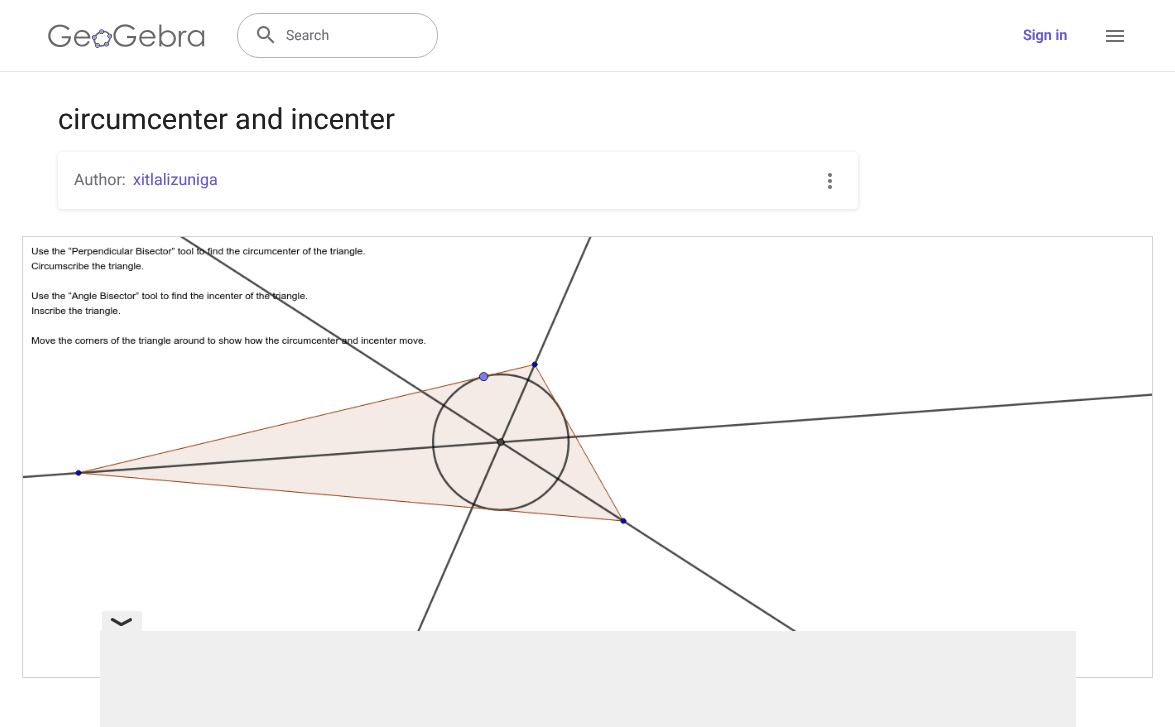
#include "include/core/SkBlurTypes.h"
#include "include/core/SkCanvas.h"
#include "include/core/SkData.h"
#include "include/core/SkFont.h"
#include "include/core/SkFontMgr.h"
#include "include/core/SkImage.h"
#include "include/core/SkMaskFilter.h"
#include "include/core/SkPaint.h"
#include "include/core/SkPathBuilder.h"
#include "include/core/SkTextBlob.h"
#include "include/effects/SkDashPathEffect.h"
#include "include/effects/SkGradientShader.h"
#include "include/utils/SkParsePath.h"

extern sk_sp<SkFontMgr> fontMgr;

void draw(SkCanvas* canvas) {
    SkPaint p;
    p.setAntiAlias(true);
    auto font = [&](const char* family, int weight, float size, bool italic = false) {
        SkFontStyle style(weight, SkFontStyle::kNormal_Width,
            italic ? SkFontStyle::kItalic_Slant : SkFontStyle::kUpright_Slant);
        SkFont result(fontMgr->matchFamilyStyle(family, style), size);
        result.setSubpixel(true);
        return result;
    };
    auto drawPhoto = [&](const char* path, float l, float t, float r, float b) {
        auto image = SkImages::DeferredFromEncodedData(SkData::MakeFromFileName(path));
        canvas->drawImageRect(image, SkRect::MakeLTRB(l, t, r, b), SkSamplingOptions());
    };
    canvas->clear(0xFFFFFFFF);
    p.setColor(0xFFE6E6EB);
    canvas->drawRect(SkRect::MakeLTRB(0, 71, 1175, 72), p);
    drawPhoto("media/1.png", 48, 24, 205, 48);
    p.setStyle(SkPaint::kStroke_Style);
    p.setStrokeWidth(1);
    p.setColor(0xFFB4B3BA);
    canvas->drawRoundRect(SkRect::MakeLTRB(237.5f, 13.5f, 437.5f, 57.5f), 21.5f, 21.5f, p);
    drawPhoto("media/2.png", 257, 26, 275, 44);
    auto font1 = font("Roboto", 400, 14);
    p.setStyle(SkPaint::kFill_Style);
    p.setColor(0xFF6E6D73);
    canvas->drawString("Search", 286, 40, font1, p);
    auto font2 = font("Roboto", 600, 14.5f);
    p.setColor(0xFF6557D2);
    canvas->drawString("Sign in", 1023, 40, font2, p);
    drawPhoto("media/3.png", 1106, 30, 1124, 42);
    auto font3 = font("Roboto", 400, 29);
    p.setColor(0xFF212121);
    canvas->drawString("circumcenter and incenter", 58, 129, font3, p);
    p.setColor(0x241C1C1F);
    p.setMaskFilter(SkMaskFilter::MakeBlur(kNormal_SkBlurStyle, 2));
    canvas->drawRoundRect(SkRect::MakeLTRB(58, 153, 858, 210), 4, 4, p);
    p.setMaskFilter(nullptr);
    p.setColor(0xFFFFFFFF);
    canvas->drawRoundRect(SkRect::MakeLTRB(58, 152, 858, 209), 4, 4, p);
    auto font4 = font("Roboto", 400, 16);
    p.setColor(0xFF6E6D73);
    canvas->drawString("Author:", 74, 185, font4, p);
    p.setColor(0xFF6557D2);
    canvas->drawString("xitlalizuniga", 133, 185, font4, p);
    drawPhoto("media/4.png", 828, 173, 832, 189);
    drawPhoto("media/5.png", 23, 237, 1152, 677);
    p.setStyle(SkPaint::kStroke_Style);
    p.setColor(0xFFD3D3D3);
    canvas->drawRect(SkRect::MakeLTRB(22.5f, 236.5f, 1152.5f, 677.5f), p);
    p.setStyle(SkPaint::kFill_Style);
    p.setColor(0xFFEFEFEF);
    canvas->drawPath(SkPathBuilder().moveTo(104, 611).lineTo(140, 611).cubicTo(141, 611, 142, 612, 142, 613).lineTo(142, 631).lineTo(102, 631).lineTo(102, 613).cubicTo(102, 612, 103, 611, 104, 611).close().detach(), p);
    p.setColor(0xFF313131);
    canvas->drawPath(SkPathBuilder().moveTo(113, 618).lineTo(122.5f, 623.5f).cubicTo(123, 625, 121.5f, 626.5f, 120.5f, 626).lineTo(111, 620.5f).cubicTo(110, 619, 112, 617.5f, 113, 618).close().detach(), p);
    canvas->drawPath(SkPathBuilder().moveTo(121, 623).lineTo(130.5f, 618).cubicTo(132, 618, 132.5f, 620, 131.5f, 621).lineTo(122, 626).cubicTo(120.5f, 626, 120, 624, 121, 623).close().detach(), p);
    p.setColor(0xFFEFEFEF);
    canvas->drawRect(SkRect::MakeLTRB(100, 631, 1076, 727), p);
}
